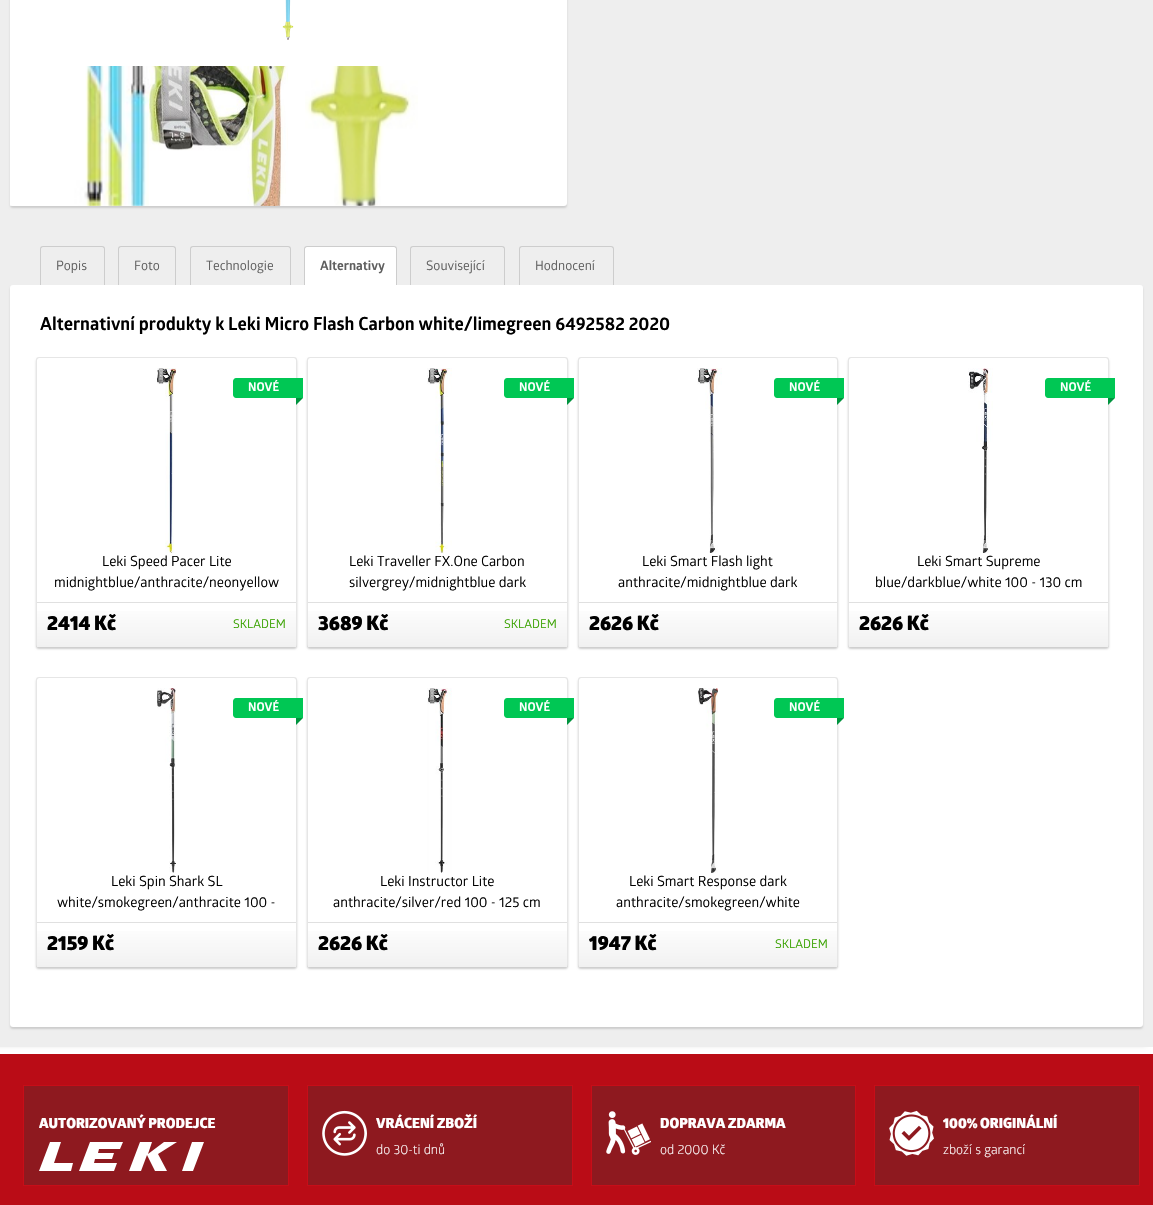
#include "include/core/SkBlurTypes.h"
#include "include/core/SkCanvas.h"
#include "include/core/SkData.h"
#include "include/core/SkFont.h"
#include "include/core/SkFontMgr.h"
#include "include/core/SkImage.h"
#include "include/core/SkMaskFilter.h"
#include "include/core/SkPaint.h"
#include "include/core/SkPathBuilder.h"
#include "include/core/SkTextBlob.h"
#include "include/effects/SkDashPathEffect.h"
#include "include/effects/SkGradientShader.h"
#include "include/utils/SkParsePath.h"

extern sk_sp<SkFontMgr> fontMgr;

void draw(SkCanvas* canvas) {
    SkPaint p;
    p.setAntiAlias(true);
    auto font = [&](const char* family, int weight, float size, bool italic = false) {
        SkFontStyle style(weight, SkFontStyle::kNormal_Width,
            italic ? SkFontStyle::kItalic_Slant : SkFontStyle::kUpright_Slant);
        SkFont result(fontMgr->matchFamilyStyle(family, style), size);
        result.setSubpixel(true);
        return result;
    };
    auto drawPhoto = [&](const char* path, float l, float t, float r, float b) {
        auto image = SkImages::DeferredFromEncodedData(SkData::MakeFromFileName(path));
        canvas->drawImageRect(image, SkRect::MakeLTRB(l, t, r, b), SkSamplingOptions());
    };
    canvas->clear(0xFFFFFFFF);
    p.setColor(0xFFD1D1D1);
    p.setMaskFilter(SkMaskFilter::MakeBlur(kNormal_SkBlurStyle, 2.5f));
    canvas->drawRect(SkRect::MakeLTRB(-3, -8, 1146, 1045), p);
    p.setMaskFilter(nullptr);
    p.setColor(0xFFEEEEEE);
    canvas->drawRect(SkRect::MakeLTRB(0, 0, 1153, 1047), p);
    p.setColor(0xFFCDCDCD);
    p.setMaskFilter(SkMaskFilter::MakeBlur(kNormal_SkBlurStyle, 1));
    canvas->drawRoundRect(SkRect::MakeLTRB(10, -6, 567, 208), 3, 3, p);
    p.setMaskFilter(nullptr);
    p.setColor(0xFFFFFFFF);
    canvas->drawRoundRect(SkRect::MakeLTRB(10, -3, 567, 206), 3, 3, p);
    drawPhoto("media/1.png", 282, 0, 294, 40);
    drawPhoto("media/2.png", 10, 66, 149, 206);
    drawPhoto("media/3.png", 149, 66, 288, 206);
    drawPhoto("media/4.png", 305, 66, 418, 206);
    p.setColor(0xFFCDCDCD);
    p.setMaskFilter(SkMaskFilter::MakeBlur(kNormal_SkBlurStyle, 1));
    canvas->drawRoundRect(SkRect::MakeLTRB(10, 287, 1143, 1029), 3, 3, p);
    p.setMaskFilter(nullptr);
    canvas->drawPath(SkPathBuilder(SkPathFillType::kEvenOdd).moveTo(43, 246).lineTo(102, 246).cubicTo(104, 246, 105, 247, 105, 249).lineTo(105, 285).lineTo(40, 285).lineTo(40, 249).cubicTo(40, 247, 41, 246, 43, 246).close().moveTo(43, 247).lineTo(102, 247).cubicTo(103, 247, 104, 248, 104, 249).lineTo(104, 285).lineTo(41, 285).lineTo(41, 249).cubicTo(41, 248, 42, 247, 43, 247).close().detach(), p);
    auto font1 = font("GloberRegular", 400, 13);
    p.setColor(0xFF5F5F5F);
    canvas->drawString("Popis", 56, 270, font1, p);
    p.setColor(0xFFCDCDCD);
    canvas->drawPath(SkPathBuilder(SkPathFillType::kEvenOdd).moveTo(121, 246).lineTo(173, 246).cubicTo(175, 246, 176, 247, 176, 249).lineTo(176, 285).lineTo(118, 285).lineTo(118, 249).cubicTo(118, 247, 119, 246, 121, 246).close().moveTo(121, 247).lineTo(173, 247).cubicTo(174, 247, 175, 248, 175, 249).lineTo(175, 285).lineTo(119, 285).lineTo(119, 249).cubicTo(119, 248, 120, 247, 121, 247).close().detach(), p);
    p.setColor(0xFF5F5F5F);
    canvas->drawString("Foto", 134, 270, font1, p);
    p.setColor(0xFFCDCDCD);
    canvas->drawPath(SkPathBuilder(SkPathFillType::kEvenOdd).moveTo(193, 246).lineTo(288, 246).cubicTo(290, 246, 291, 247, 291, 249).lineTo(291, 285).lineTo(190, 285).lineTo(190, 249).cubicTo(190, 247, 191, 246, 193, 246).close().moveTo(193, 247).lineTo(288, 247).cubicTo(289, 247, 290, 248, 290, 249).lineTo(290, 285).lineTo(191, 285).lineTo(191, 249).cubicTo(191, 248, 192, 247, 193, 247).close().detach(), p);
    p.setColor(0xFF5F5F5F);
    canvas->drawString("Technologie", 206, 270, font1, p);
    p.setColor(0xFFFFFFFF);
    canvas->drawPath(SkPathBuilder().moveTo(307, 246).lineTo(394, 246).cubicTo(395.5f, 246, 397, 247.5f, 397, 249).lineTo(397, 285).lineTo(304, 285).lineTo(304, 249).cubicTo(304, 247.5f, 305.5f, 246, 307, 246).close().detach(), p);
    p.setColor(0xFFCDCDCD);
    canvas->drawPath(SkPathBuilder(SkPathFillType::kEvenOdd).moveTo(307, 246).lineTo(394, 246).cubicTo(396, 246, 397, 247, 397, 249).lineTo(397, 285).lineTo(304, 285).lineTo(304, 249).cubicTo(304, 247, 305, 246, 307, 246).close().moveTo(307, 247).lineTo(394, 247).cubicTo(395, 247, 396, 248, 396, 249).lineTo(396, 285).lineTo(305, 285).lineTo(305, 249).cubicTo(305, 248, 306, 247, 307, 247).close().detach(), p);
    auto font2 = font("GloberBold", 400, 13);
    p.setColor(0xFF5F5F5F);
    canvas->drawString("Alternativy", 320, 270, font2, p);
    p.setColor(0xFFCDCDCD);
    canvas->drawPath(SkPathBuilder(SkPathFillType::kEvenOdd).moveTo(413, 246).lineTo(502, 246).cubicTo(504, 246, 505, 247, 505, 249).lineTo(505, 285).lineTo(410, 285).lineTo(410, 249).cubicTo(410, 247, 411, 246, 413, 246).close().moveTo(413, 247).lineTo(502, 247).cubicTo(503, 247, 504, 248, 504, 249).lineTo(504, 285).lineTo(411, 285).lineTo(411, 249).cubicTo(411, 248, 412, 247, 413, 247).close().detach(), p);
    p.setColor(0xFF5F5F5F);
    canvas->drawString("Související", 426, 270, font1, p);
    p.setColor(0xFFCDCDCD);
    canvas->drawPath(SkPathBuilder(SkPathFillType::kEvenOdd).moveTo(522, 246).lineTo(611, 246).cubicTo(613, 246, 614, 247, 614, 249).lineTo(614, 285).lineTo(519, 285).lineTo(519, 249).cubicTo(519, 247, 520, 246, 522, 246).close().moveTo(522, 247).lineTo(611, 247).cubicTo(612, 247, 613, 248, 613, 249).lineTo(613, 285).lineTo(520, 285).lineTo(520, 249).cubicTo(520, 248, 521, 247, 522, 247).close().detach(), p);
    p.setColor(0xFF5F5F5F);
    canvas->drawString("Hodnocení", 535, 270, font1, p);
    p.setColor(0xFFFFFFFF);
    canvas->drawRoundRect(SkRect::MakeLTRB(10, 285, 1143, 1027), 3, 3, p);
    auto font3 = font("GloberBold", 400, 18);
    p.setColor(0xFF000000);
    canvas->drawString("Alternativní produkty k Leki Micro Flash Carbon white/limegreen 6492582 2020", 40, 330, font3, p);
    p.setColor(0xFFCDCDCD);
    p.setMaskFilter(SkMaskFilter::MakeBlur(kNormal_SkBlurStyle, 1));
    canvas->drawRoundRect(SkRect::MakeLTRB(36, 359, 297, 649), 3, 3, p);
    p.setMaskFilter(nullptr);
    p.setColor(0xFFFFFFFF);
    canvas->drawPath(SkPathBuilder().moveTo(39, 358).lineTo(294, 358).cubicTo(295, 358, 296, 359, 296, 360).lineTo(296, 644).cubicTo(296, 646, 295, 647, 294, 647).lineTo(39, 647).cubicTo(38, 647, 37, 646, 37, 644).lineTo(37, 360).cubicTo(37, 359, 38, 358, 39, 358).close().detach(), p);
    p.setColor(0xFFE6E6E6);
    canvas->drawPath(SkPathBuilder(SkPathFillType::kEvenOdd).moveTo(39, 357).lineTo(294, 357).cubicTo(296, 357, 297, 358, 297, 360).lineTo(297, 644).cubicTo(297, 646, 296, 647, 294, 647).lineTo(39, 647).cubicTo(37, 647, 36, 646, 36, 644).lineTo(36, 360).cubicTo(36, 358, 37, 357, 39, 357).close().moveTo(39, 358).lineTo(294, 358).cubicTo(295, 358, 296, 359, 296, 360).lineTo(296, 644).cubicTo(296, 646, 295, 647, 294, 647).lineTo(39, 647).cubicTo(38, 647, 37, 646, 37, 644).lineTo(37, 360).cubicTo(37, 359, 38, 358, 39, 358).close().detach(), p);
    drawPhoto("media/5.png", 157, 368, 176, 553);
    p.setColor(0xFF00C754);
    canvas->drawPath(SkPathBuilder().moveTo(236, 378).lineTo(303, 378).lineTo(303, 398).lineTo(236, 398).cubicTo(234.5f, 398, 233, 396.5f, 233, 395).lineTo(233, 381).cubicTo(233, 379.5f, 234.5f, 378, 236, 378).close().detach(), p);
    auto font4 = font("GloberBold", 400, 12);
    p.setColor(0xFFFFFFFF);
    canvas->drawString("NOVÉ", 248, 391, font4, p);
    p.setColor(0xFF00943E);
    canvas->drawPath(SkPathBuilder().moveTo(296, 405).lineTo(296, 398).lineTo(303, 398).close().detach(), p);
    auto font5 = font("GloberRegular", 400, 14);
    p.setColor(0xFF000000);
    canvas->drawString("Leki Speed Pacer Lite", 102, 566, font5, p);
    canvas->drawString("midnightblue/anthracite/neonyellow", 54, 587, font5, p);
    {
        const SkColor colors[] = {0xFFFFFFFF, 0xFFF1F1F1};
        const float stops[] = {0, 1};
        const SkPoint ends[] = {{167, 603}, {167, 647}};
        p.setShader(SkGradientShader::MakeLinear(ends, colors, stops, 2, SkTileMode::kClamp));
        p.setAlpha(255);
    }
    canvas->drawRect(SkRect::MakeLTRB(37, 611, 296, 647), p);
    p.setShader(nullptr);
    p.setColor(0xFFE0E0E0);
    canvas->drawRect(SkRect::MakeLTRB(37, 602, 296, 603), p);
    auto font6 = font("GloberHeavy", 400, 20);
    p.setColor(0xFF000000);
    canvas->drawString("2414 Kč", 47, 630, font6, p);
    auto font7 = font("GloberRegular", 400, 12);
    p.setColor(0xFF39A200);
    canvas->drawString("SKLADEM", 233, 628, font7, p);
    p.setColor(0xFFCDCDCD);
    p.setMaskFilter(SkMaskFilter::MakeBlur(kNormal_SkBlurStyle, 1));
    canvas->drawRoundRect(SkRect::MakeLTRB(307, 359, 568, 649), 3, 3, p);
    p.setMaskFilter(nullptr);
    p.setColor(0xFFFFFFFF);
    canvas->drawPath(SkPathBuilder().moveTo(310, 358).lineTo(565, 358).cubicTo(566, 358, 567, 359, 567, 360).lineTo(567, 644).cubicTo(567, 646, 566, 647, 565, 647).lineTo(310, 647).cubicTo(309, 647, 308, 646, 308, 644).lineTo(308, 360).cubicTo(308, 359, 309, 358, 310, 358).close().detach(), p);
    p.setColor(0xFFE6E6E6);
    canvas->drawPath(SkPathBuilder(SkPathFillType::kEvenOdd).moveTo(310, 357).lineTo(565, 357).cubicTo(567, 357, 568, 358, 568, 360).lineTo(568, 644).cubicTo(568, 646, 567, 647, 565, 647).lineTo(310, 647).cubicTo(308, 647, 307, 646, 307, 644).lineTo(307, 360).cubicTo(307, 358, 308, 357, 310, 357).close().moveTo(310, 358).lineTo(565, 358).cubicTo(566, 358, 567, 359, 567, 360).lineTo(567, 644).cubicTo(567, 646, 566, 647, 565, 647).lineTo(310, 647).cubicTo(309, 647, 308, 646, 308, 644).lineTo(308, 360).cubicTo(308, 359, 309, 358, 310, 358).close().detach(), p);
    drawPhoto("media/6.png", 427, 368, 452, 553);
    p.setColor(0xFF00C754);
    canvas->drawPath(SkPathBuilder().moveTo(507, 378).lineTo(574, 378).lineTo(574, 398).lineTo(507, 398).cubicTo(505.5f, 398, 504, 396.5f, 504, 395).lineTo(504, 381).cubicTo(504, 379.5f, 505.5f, 378, 507, 378).close().detach(), p);
    p.setColor(0xFFFFFFFF);
    canvas->drawString("NOVÉ", 519, 391, font4, p);
    p.setColor(0xFF00943E);
    canvas->drawPath(SkPathBuilder().moveTo(567, 405).lineTo(567, 398).lineTo(574, 398).close().detach(), p);
    p.setColor(0xFF000000);
    canvas->drawString("Leki Traveller FX.One Carbon", 349, 566, font5, p);
    canvas->drawString("silvergrey/midnightblue dark", 349, 587, font5, p);
    {
        const SkColor colors[] = {0xFFFFFFFF, 0xFFF1F1F1};
        const float stops[] = {0, 1};
        const SkPoint ends[] = {{438, 603}, {438, 647}};
        p.setShader(SkGradientShader::MakeLinear(ends, colors, stops, 2, SkTileMode::kClamp));
        p.setAlpha(255);
    }
    canvas->drawRect(SkRect::MakeLTRB(308, 611, 567, 647), p);
    p.setShader(nullptr);
    p.setColor(0xFFE0E0E0);
    canvas->drawRect(SkRect::MakeLTRB(308, 602, 567, 603), p);
    p.setColor(0xFF000000);
    canvas->drawString("3689 Kč", 318, 630, font6, p);
    p.setColor(0xFF39A200);
    canvas->drawString("SKLADEM", 504, 628, font7, p);
    p.setColor(0xFFCDCDCD);
    p.setMaskFilter(SkMaskFilter::MakeBlur(kNormal_SkBlurStyle, 1));
    canvas->drawRoundRect(SkRect::MakeLTRB(578, 359, 838, 649), 3, 3, p);
    p.setMaskFilter(nullptr);
    p.setColor(0xFFFFFFFF);
    canvas->drawPath(SkPathBuilder().moveTo(581, 358).lineTo(835, 358).cubicTo(836, 358, 837, 359, 837, 360).lineTo(837, 644).cubicTo(837, 646, 836, 647, 835, 647).lineTo(581, 647).cubicTo(580, 647, 579, 646, 579, 644).lineTo(579, 360).cubicTo(579, 359, 580, 358, 581, 358).close().detach(), p);
    p.setColor(0xFFE6E6E6);
    canvas->drawPath(SkPathBuilder(SkPathFillType::kEvenOdd).moveTo(581, 357).lineTo(835, 357).cubicTo(837, 357, 838, 358, 838, 360).lineTo(838, 644).cubicTo(838, 646, 837, 647, 835, 647).lineTo(581, 647).cubicTo(579, 647, 578, 646, 578, 644).lineTo(578, 360).cubicTo(578, 358, 579, 357, 581, 357).close().moveTo(581, 358).lineTo(835, 358).cubicTo(836, 358, 837, 359, 837, 360).lineTo(837, 644).cubicTo(837, 646, 836, 647, 835, 647).lineTo(581, 647).cubicTo(580, 647, 579, 646, 579, 644).lineTo(579, 360).cubicTo(579, 359, 580, 358, 581, 358).close().detach(), p);
    drawPhoto("media/7.png", 697, 368, 722, 553);
    p.setColor(0xFF00C754);
    canvas->drawPath(SkPathBuilder().moveTo(777, 378).lineTo(844, 378).lineTo(844, 398).lineTo(777, 398).cubicTo(775.5f, 398, 774, 396.5f, 774, 395).lineTo(774, 381).cubicTo(774, 379.5f, 775.5f, 378, 777, 378).close().detach(), p);
    p.setColor(0xFFFFFFFF);
    canvas->drawString("NOVÉ", 789, 391, font4, p);
    p.setColor(0xFF00943E);
    canvas->drawPath(SkPathBuilder().moveTo(837, 405).lineTo(837, 398).lineTo(844, 398).close().detach(), p);
    p.setColor(0xFF000000);
    canvas->drawString("Leki Smart Flash light", 642, 566, font5, p);
    canvas->drawString("anthracite/midnightblue dark", 618, 587, font5, p);
    {
        const SkColor colors[] = {0xFFFFFFFF, 0xFFF1F1F1};
        const float stops[] = {0, 1};
        const SkPoint ends[] = {{708, 603}, {708, 647}};
        p.setShader(SkGradientShader::MakeLinear(ends, colors, stops, 2, SkTileMode::kClamp));
        p.setAlpha(255);
    }
    canvas->drawRect(SkRect::MakeLTRB(579, 611, 837, 647), p);
    p.setShader(nullptr);
    p.setColor(0xFFE0E0E0);
    canvas->drawRect(SkRect::MakeLTRB(579, 602, 837, 603), p);
    p.setColor(0xFF000000);
    canvas->drawString("2626 Kč", 589, 630, font6, p);
    p.setColor(0xFFCDCDCD);
    p.setMaskFilter(SkMaskFilter::MakeBlur(kNormal_SkBlurStyle, 1));
    canvas->drawRoundRect(SkRect::MakeLTRB(848, 359, 1109, 649), 3, 3, p);
    p.setMaskFilter(nullptr);
    p.setColor(0xFFFFFFFF);
    canvas->drawPath(SkPathBuilder().moveTo(851, 358).lineTo(1106, 358).cubicTo(1107, 358, 1108, 359, 1108, 360).lineTo(1108, 644).cubicTo(1108, 646, 1107, 647, 1106, 647).lineTo(851, 647).cubicTo(850, 647, 849, 646, 849, 644).lineTo(849, 360).cubicTo(849, 359, 850, 358, 851, 358).close().detach(), p);
    p.setColor(0xFFE6E6E6);
    canvas->drawPath(SkPathBuilder(SkPathFillType::kEvenOdd).moveTo(851, 357).lineTo(1106, 357).cubicTo(1108, 357, 1109, 358, 1109, 360).lineTo(1109, 644).cubicTo(1109, 646, 1108, 647, 1106, 647).lineTo(851, 647).cubicTo(849, 647, 848, 646, 848, 644).lineTo(848, 360).cubicTo(848, 358, 849, 357, 851, 357).close().moveTo(851, 358).lineTo(1106, 358).cubicTo(1107, 358, 1108, 359, 1108, 360).lineTo(1108, 644).cubicTo(1108, 646, 1107, 647, 1106, 647).lineTo(851, 647).cubicTo(850, 647, 849, 646, 849, 644).lineTo(849, 360).cubicTo(849, 359, 850, 358, 851, 358).close().detach(), p);
    drawPhoto("media/8.png", 968, 368, 993, 553);
    p.setColor(0xFF00C754);
    canvas->drawPath(SkPathBuilder().moveTo(1048, 378).lineTo(1115, 378).lineTo(1115, 398).lineTo(1048, 398).cubicTo(1046.5f, 398, 1045, 396.5f, 1045, 395).lineTo(1045, 381).cubicTo(1045, 379.5f, 1046.5f, 378, 1048, 378).close().detach(), p);
    p.setColor(0xFFFFFFFF);
    canvas->drawString("NOVÉ", 1060, 391, font4, p);
    p.setColor(0xFF00943E);
    canvas->drawPath(SkPathBuilder().moveTo(1108, 405).lineTo(1108, 398).lineTo(1115, 398).close().detach(), p);
    p.setColor(0xFF000000);
    canvas->drawString("Leki Smart Supreme", 917, 566, font5, p);
    canvas->drawString("blue/darkblue/white 100 - 130 cm", 875, 587, font5, p);
    {
        const SkColor colors[] = {0xFFFFFFFF, 0xFFF1F1F1};
        const float stops[] = {0, 1};
        const SkPoint ends[] = {{979, 603}, {979, 647}};
        p.setShader(SkGradientShader::MakeLinear(ends, colors, stops, 2, SkTileMode::kClamp));
        p.setAlpha(255);
    }
    canvas->drawRect(SkRect::MakeLTRB(849, 611, 1108, 647), p);
    p.setShader(nullptr);
    p.setColor(0xFFE0E0E0);
    canvas->drawRect(SkRect::MakeLTRB(849, 602, 1108, 603), p);
    p.setColor(0xFF000000);
    canvas->drawString("2626 Kč", 859, 630, font6, p);
    p.setColor(0xFFCDCDCD);
    p.setMaskFilter(SkMaskFilter::MakeBlur(kNormal_SkBlurStyle, 1));
    canvas->drawRoundRect(SkRect::MakeLTRB(36, 679, 297, 969), 3, 3, p);
    p.setMaskFilter(nullptr);
    p.setColor(0xFFFFFFFF);
    canvas->drawPath(SkPathBuilder().moveTo(39, 678).lineTo(294, 678).cubicTo(295, 678, 296, 679, 296, 680).lineTo(296, 964).cubicTo(296, 966, 295, 967, 294, 967).lineTo(39, 967).cubicTo(38, 967, 37, 966, 37, 964).lineTo(37, 680).cubicTo(37, 679, 38, 678, 39, 678).close().detach(), p);
    p.setColor(0xFFE6E6E6);
    canvas->drawPath(SkPathBuilder(SkPathFillType::kEvenOdd).moveTo(39, 677).lineTo(294, 677).cubicTo(296, 677, 297, 678, 297, 680).lineTo(297, 964).cubicTo(297, 966, 296, 967, 294, 967).lineTo(39, 967).cubicTo(37, 967, 36, 966, 36, 964).lineTo(36, 680).cubicTo(36, 678, 37, 677, 39, 677).close().moveTo(39, 678).lineTo(294, 678).cubicTo(295, 678, 296, 679, 296, 680).lineTo(296, 964).cubicTo(296, 966, 295, 967, 294, 967).lineTo(39, 967).cubicTo(38, 967, 37, 966, 37, 964).lineTo(37, 680).cubicTo(37, 679, 38, 678, 39, 678).close().detach(), p);
    drawPhoto("media/9.png", 157, 688, 176, 873);
    p.setColor(0xFF00C754);
    canvas->drawPath(SkPathBuilder().moveTo(236, 698).lineTo(303, 698).lineTo(303, 718).lineTo(236, 718).cubicTo(234.5f, 718, 233, 716.5f, 233, 715).lineTo(233, 701).cubicTo(233, 699.5f, 234.5f, 698, 236, 698).close().detach(), p);
    p.setColor(0xFFFFFFFF);
    canvas->drawString("NOVÉ", 248, 711, font4, p);
    p.setColor(0xFF00943E);
    canvas->drawPath(SkPathBuilder().moveTo(296, 725).lineTo(296, 718).lineTo(303, 718).close().detach(), p);
    p.setColor(0xFF000000);
    canvas->drawString("Leki Spin Shark SL", 111, 886, font5, p);
    canvas->drawString("white/smokegreen/anthracite 100 -", 57, 907, font5, p);
    {
        const SkColor colors[] = {0xFFFFFFFF, 0xFFF1F1F1};
        const float stops[] = {0, 1};
        const SkPoint ends[] = {{167, 923}, {167, 967}};
        p.setShader(SkGradientShader::MakeLinear(ends, colors, stops, 2, SkTileMode::kClamp));
        p.setAlpha(255);
    }
    canvas->drawRect(SkRect::MakeLTRB(37, 931, 296, 967), p);
    p.setShader(nullptr);
    p.setColor(0xFFE0E0E0);
    canvas->drawRect(SkRect::MakeLTRB(37, 922, 296, 923), p);
    p.setColor(0xFF000000);
    canvas->drawString("2159 Kč", 47, 950, font6, p);
    p.setColor(0xFFCDCDCD);
    p.setMaskFilter(SkMaskFilter::MakeBlur(kNormal_SkBlurStyle, 1));
    canvas->drawRoundRect(SkRect::MakeLTRB(307, 679, 568, 969), 3, 3, p);
    p.setMaskFilter(nullptr);
    p.setColor(0xFFFFFFFF);
    canvas->drawPath(SkPathBuilder().moveTo(310, 678).lineTo(565, 678).cubicTo(566, 678, 567, 679, 567, 680).lineTo(567, 964).cubicTo(567, 966, 566, 967, 565, 967).lineTo(310, 967).cubicTo(309, 967, 308, 966, 308, 964).lineTo(308, 680).cubicTo(308, 679, 309, 678, 310, 678).close().detach(), p);
    p.setColor(0xFFE6E6E6);
    canvas->drawPath(SkPathBuilder(SkPathFillType::kEvenOdd).moveTo(310, 677).lineTo(565, 677).cubicTo(567, 677, 568, 678, 568, 680).lineTo(568, 964).cubicTo(568, 966, 567, 967, 565, 967).lineTo(310, 967).cubicTo(308, 967, 307, 966, 307, 964).lineTo(307, 680).cubicTo(307, 678, 308, 677, 310, 677).close().moveTo(310, 678).lineTo(565, 678).cubicTo(566, 678, 567, 679, 567, 680).lineTo(567, 964).cubicTo(567, 966, 566, 967, 565, 967).lineTo(310, 967).cubicTo(309, 967, 308, 966, 308, 964).lineTo(308, 680).cubicTo(308, 679, 309, 678, 310, 678).close().detach(), p);
    drawPhoto("media/10.png", 427, 688, 452, 873);
    p.setColor(0xFF00C754);
    canvas->drawPath(SkPathBuilder().moveTo(507, 698).lineTo(574, 698).lineTo(574, 718).lineTo(507, 718).cubicTo(505.5f, 718, 504, 716.5f, 504, 715).lineTo(504, 701).cubicTo(504, 699.5f, 505.5f, 698, 507, 698).close().detach(), p);
    p.setColor(0xFFFFFFFF);
    canvas->drawString("NOVÉ", 519, 711, font4, p);
    p.setColor(0xFF00943E);
    canvas->drawPath(SkPathBuilder().moveTo(567, 725).lineTo(567, 718).lineTo(574, 718).close().detach(), p);
    p.setColor(0xFF000000);
    canvas->drawString("Leki Instructor Lite", 380, 886, font5, p);
    canvas->drawString("anthracite/silver/red 100 - 125 cm", 333, 907, font5, p);
    {
        const SkColor colors[] = {0xFFFFFFFF, 0xFFF1F1F1};
        const float stops[] = {0, 1};
        const SkPoint ends[] = {{438, 923}, {438, 967}};
        p.setShader(SkGradientShader::MakeLinear(ends, colors, stops, 2, SkTileMode::kClamp));
        p.setAlpha(255);
    }
    canvas->drawRect(SkRect::MakeLTRB(308, 931, 567, 967), p);
    p.setShader(nullptr);
    p.setColor(0xFFE0E0E0);
    canvas->drawRect(SkRect::MakeLTRB(308, 922, 567, 923), p);
    p.setColor(0xFF000000);
    canvas->drawString("2626 Kč", 318, 950, font6, p);
    p.setColor(0xFFCDCDCD);
    p.setMaskFilter(SkMaskFilter::MakeBlur(kNormal_SkBlurStyle, 1));
    canvas->drawRoundRect(SkRect::MakeLTRB(578, 679, 838, 969), 3, 3, p);
    p.setMaskFilter(nullptr);
    p.setColor(0xFFFFFFFF);
    canvas->drawPath(SkPathBuilder().moveTo(581, 678).lineTo(835, 678).cubicTo(836, 678, 837, 679, 837, 680).lineTo(837, 964).cubicTo(837, 966, 836, 967, 835, 967).lineTo(581, 967).cubicTo(580, 967, 579, 966, 579, 964).lineTo(579, 680).cubicTo(579, 679, 580, 678, 581, 678).close().detach(), p);
    p.setColor(0xFFE6E6E6);
    canvas->drawPath(SkPathBuilder(SkPathFillType::kEvenOdd).moveTo(581, 677).lineTo(835, 677).cubicTo(837, 677, 838, 678, 838, 680).lineTo(838, 964).cubicTo(838, 966, 837, 967, 835, 967).lineTo(581, 967).cubicTo(579, 967, 578, 966, 578, 964).lineTo(578, 680).cubicTo(578, 678, 579, 677, 581, 677).close().moveTo(581, 678).lineTo(835, 678).cubicTo(836, 678, 837, 679, 837, 680).lineTo(837, 964).cubicTo(837, 966, 836, 967, 835, 967).lineTo(581, 967).cubicTo(580, 967, 579, 966, 579, 964).lineTo(579, 680).cubicTo(579, 679, 580, 678, 581, 678).close().detach(), p);
    drawPhoto("media/11.png", 698, 688, 718, 873);
    p.setColor(0xFF00C754);
    canvas->drawPath(SkPathBuilder().moveTo(777, 698).lineTo(844, 698).lineTo(844, 718).lineTo(777, 718).cubicTo(775.5f, 718, 774, 716.5f, 774, 715).lineTo(774, 701).cubicTo(774, 699.5f, 775.5f, 698, 777, 698).close().detach(), p);
    p.setColor(0xFFFFFFFF);
    canvas->drawString("NOVÉ", 789, 711, font4, p);
    p.setColor(0xFF00943E);
    canvas->drawPath(SkPathBuilder().moveTo(837, 725).lineTo(837, 718).lineTo(844, 718).close().detach(), p);
    p.setColor(0xFF000000);
    canvas->drawString("Leki Smart Response dark", 629, 886, font5, p);
    canvas->drawString("anthracite/smokegreen/white", 616, 907, font5, p);
    {
        const SkColor colors[] = {0xFFFFFFFF, 0xFFF1F1F1};
        const float stops[] = {0, 1};
        const SkPoint ends[] = {{708, 923}, {708, 967}};
        p.setShader(SkGradientShader::MakeLinear(ends, colors, stops, 2, SkTileMode::kClamp));
        p.setAlpha(255);
    }
    canvas->drawRect(SkRect::MakeLTRB(579, 931, 837, 967), p);
    p.setShader(nullptr);
    p.setColor(0xFFE0E0E0);
    canvas->drawRect(SkRect::MakeLTRB(579, 922, 837, 923), p);
    p.setColor(0xFF000000);
    canvas->drawString("1947 Kč", 589, 950, font6, p);
    p.setColor(0xFF39A200);
    canvas->drawString("SKLADEM", 775, 948, font7, p);
    p.setColor(0xFFBA0C16);
    canvas->drawRect(SkRect::MakeLTRB(0, 1054, 1153, 1205), p);
    p.setColor(0xFF8E191F);
    canvas->drawRect(SkRect::MakeLTRB(23.5f, 1085.5f, 288.5f, 1185.5f), p);
    p.setStyle(SkPaint::kStroke_Style);
    p.setStrokeWidth(1);
    p.setColor(0xFFC80D18);
    canvas->drawRect(SkRect::MakeLTRB(23.5f, 1085.5f, 288.5f, 1185.5f), p);
    auto font8 = font("GloberHeavy", 400, 14);
    p.setStyle(SkPaint::kFill_Style);
    p.setColor(0xFFFFFFFF);
    canvas->drawString("AUTORIZOVANÝ PRODEJCE", 39, 1128, font8, p);
    canvas->drawPath(SkPathBuilder().moveTo(192, 1142).lineTo(204, 1142).lineTo(193, 1171).lineTo(182, 1171).close().moveTo(140, 1142).lineTo(152, 1142).lineTo(148, 1154).lineTo(164, 1142).lineTo(177, 1142).lineTo(158, 1154).lineTo(167, 1171).lineTo(155, 1171).lineTo(147, 1155).lineTo(141, 1171).lineTo(129, 1171).close().moveTo(117, 1163).lineTo(114, 1171).lineTo(79, 1171).lineTo(90, 1142).lineTo(123, 1142).lineTo(120, 1149).lineTo(99, 1149).lineTo(98, 1153).lineTo(114, 1153).lineTo(112, 1159).lineTo(95, 1159).lineTo(94, 1163).close().moveTo(50, 1142).lineTo(61, 1142).lineTo(54, 1163).lineTo(73, 1163).lineTo(71, 1171).lineTo(39, 1171).close().detach(), p);
    p.setColor(0xFF8E191F);
    canvas->drawRect(SkRect::MakeLTRB(307.5f, 1085.5f, 572.5f, 1185.5f), p);
    p.setStyle(SkPaint::kStroke_Style);
    p.setColor(0xFFC80D18);
    canvas->drawRect(SkRect::MakeLTRB(307.5f, 1085.5f, 572.5f, 1185.5f), p);
    drawPhoto("media/12.png", 322, 1110, 367, 1156);
    p.setStyle(SkPaint::kFill_Style);
    p.setColor(0xFFFFFFFF);
    canvas->drawString("VRÁCENÍ ZBOŽÍ", 376, 1128, font8, p);
    auto font9 = font("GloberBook", 400, 13);
    canvas->drawString("do 30-ti dnů", 376, 1154, font9, p);
    p.setColor(0xFF8E191F);
    canvas->drawRect(SkRect::MakeLTRB(591.5f, 1085.5f, 855.5f, 1185.5f), p);
    p.setStyle(SkPaint::kStroke_Style);
    p.setColor(0xFFC80D18);
    canvas->drawRect(SkRect::MakeLTRB(591.5f, 1085.5f, 855.5f, 1185.5f), p);
    drawPhoto("media/13.png", 606, 1111, 651, 1155);
    p.setStyle(SkPaint::kFill_Style);
    p.setColor(0xFFFFFFFF);
    canvas->drawString("DOPRAVA ZDARMA", 660, 1128, font8, p);
    canvas->drawString("od 2000 Kč", 660, 1154, font9, p);
    p.setColor(0xFF8E191F);
    canvas->drawRect(SkRect::MakeLTRB(874.5f, 1085.5f, 1139.5f, 1185.5f), p);
    p.setStyle(SkPaint::kStroke_Style);
    p.setColor(0xFFC80D18);
    canvas->drawRect(SkRect::MakeLTRB(874.5f, 1085.5f, 1139.5f, 1185.5f), p);
    drawPhoto("media/14.png", 889, 1110, 934, 1156);
    p.setStyle(SkPaint::kFill_Style);
    p.setColor(0xFFFFFFFF);
    canvas->drawString("100% ORIGINÁLNÍ", 943, 1128, font8, p);
    canvas->drawString("zboží s garancí", 943, 1154, font9, p);
}
